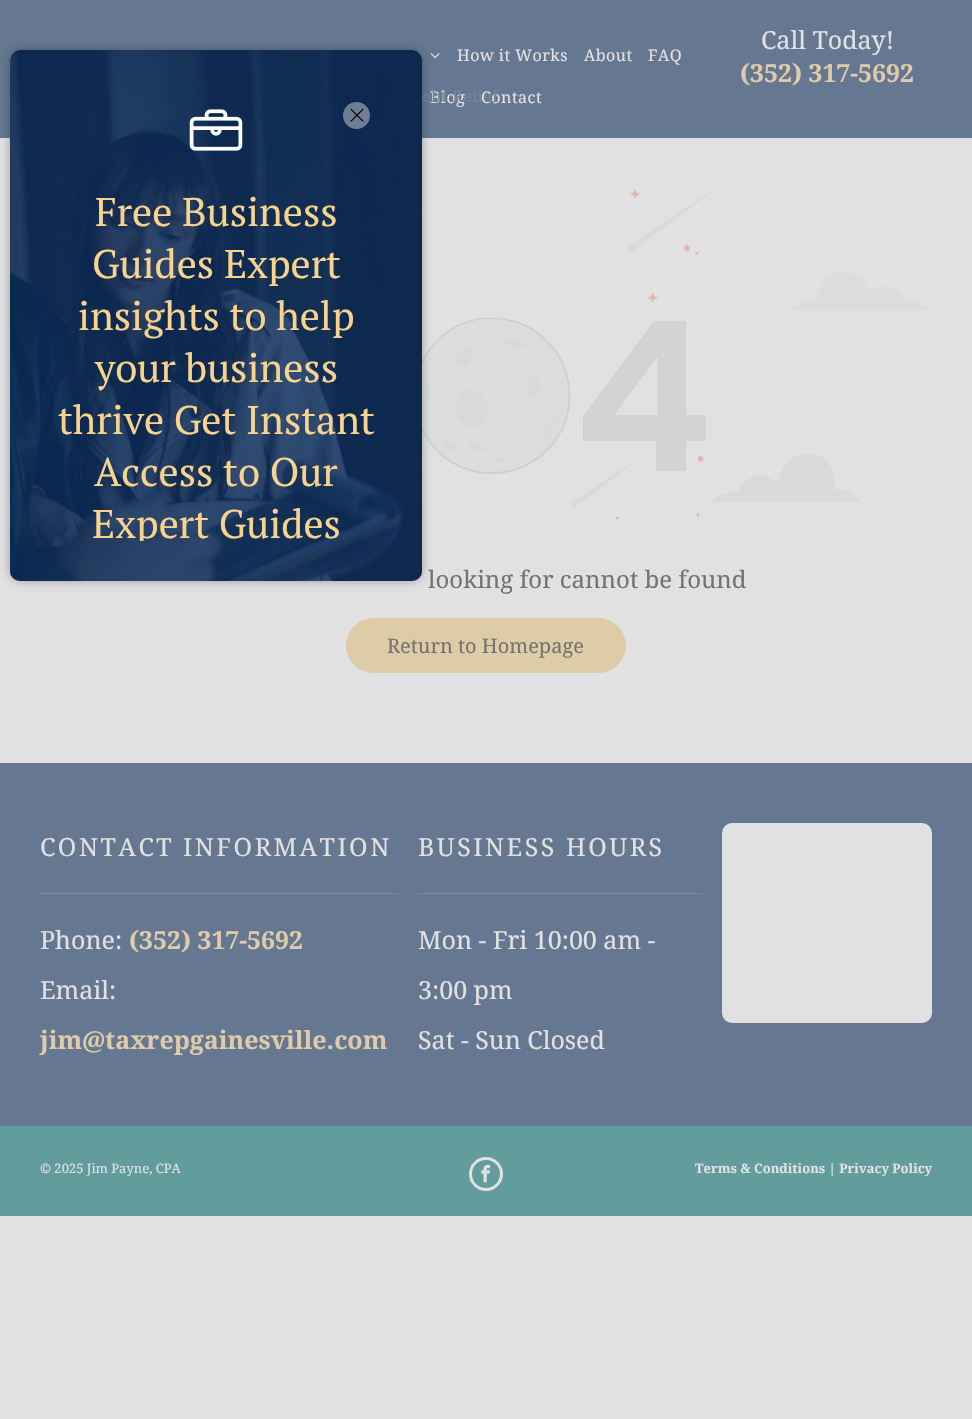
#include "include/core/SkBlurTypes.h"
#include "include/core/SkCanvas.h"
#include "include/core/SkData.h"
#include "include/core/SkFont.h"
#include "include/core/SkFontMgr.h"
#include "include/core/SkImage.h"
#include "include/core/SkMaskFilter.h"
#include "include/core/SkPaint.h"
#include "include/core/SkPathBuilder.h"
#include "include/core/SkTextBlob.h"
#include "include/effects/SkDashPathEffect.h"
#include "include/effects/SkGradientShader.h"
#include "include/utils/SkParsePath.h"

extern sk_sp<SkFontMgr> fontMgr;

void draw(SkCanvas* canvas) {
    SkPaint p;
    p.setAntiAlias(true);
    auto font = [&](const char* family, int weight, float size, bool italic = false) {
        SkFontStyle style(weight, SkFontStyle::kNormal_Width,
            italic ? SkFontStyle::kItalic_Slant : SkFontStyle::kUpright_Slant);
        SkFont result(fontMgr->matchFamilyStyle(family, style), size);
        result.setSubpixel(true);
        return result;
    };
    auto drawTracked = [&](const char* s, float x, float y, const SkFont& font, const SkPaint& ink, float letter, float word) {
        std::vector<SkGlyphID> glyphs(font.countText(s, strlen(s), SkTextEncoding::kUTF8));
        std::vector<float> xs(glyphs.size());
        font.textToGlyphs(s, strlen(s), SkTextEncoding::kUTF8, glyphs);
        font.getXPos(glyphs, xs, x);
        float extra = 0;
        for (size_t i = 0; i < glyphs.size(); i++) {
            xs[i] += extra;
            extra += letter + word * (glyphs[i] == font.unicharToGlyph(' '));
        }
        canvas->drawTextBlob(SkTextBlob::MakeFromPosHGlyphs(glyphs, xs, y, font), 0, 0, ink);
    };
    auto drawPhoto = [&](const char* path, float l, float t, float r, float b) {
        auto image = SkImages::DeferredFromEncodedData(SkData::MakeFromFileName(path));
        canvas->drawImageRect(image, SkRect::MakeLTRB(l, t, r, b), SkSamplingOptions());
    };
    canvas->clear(0xFFE1E1E1);
    p.setColor(0xFF667891);
    canvas->drawRect(SkRect::MakeLTRB(0, 0, 972, 138), p);
    auto font1 = font("Droid Serif", 400, 16);
    p.setColor(0xFFE1E1E1);
    {
        const struct { const char* s; float x, y; } items[] = {
            {"How it Works", 457, 61},
            {"About", 584, 61},
            {"FAQ", 648, 61},
        };
        for (auto [s, x, y] : items) {
            drawTracked(s, x, y, font1, p, 0.5f, 0);
        }
    }
    drawPhoto("media/1.png", 430, 53, 440, 59);
    drawTracked("Blog", 430, 103, font1, p, 0.5f, 0);
    drawTracked("Contact", 481, 103, font1, p, 0.5f, 0);
    p.setColor(0xFF77869C);
    drawTracked("ebt Relief", 422, 102, font1, p, 0.5f, 0);
    auto font2 = font("Droid Serif", 400, 25);
    p.setColor(0xFFE1E1E1);
    canvas->drawString("Call Today!", 761, 49, font2, p);
    auto font3 = font("Droid Serif", 700, 25);
    p.setColor(0xFFDECBA8);
    canvas->drawString("(352) 317-5692", 740, 82, font3, p);
    drawPhoto("media/5.png", 422, 182, 931, 520);
    p.setColor(0x4D000000);
    p.setMaskFilter(SkMaskFilter::MakeBlur(kNormal_SkBlurStyle, 5));
    canvas->drawRoundRect(SkRect::MakeLTRB(10, 50, 422, 581), 10, 10, p);
    p.setMaskFilter(nullptr);
    p.setColor(0xFFFFFFFF);
    canvas->drawRoundRect(SkRect::MakeLTRB(10, 50, 422, 581), 10, 10, p);
    drawPhoto("media/2.png", 10, 50, 422, 581);
    p.setColor(0xCC092D5F);
    canvas->drawRoundRect(SkRect::MakeLTRB(10, 50, 422, 581), 10, 10, p);
    p.setColor(0xFF6D7E95);
    canvas->drawCircle(356.5f, 115.5f, 13.5f, p);
    drawPhoto("media/3.png", 350, 108, 364, 122);
    drawPhoto("media/4.png", 189, 109, 243, 151);
    auto font4 = font("PT Serif", 400, 40);
    p.setColor(0xFFF9D28D);
    {
        const struct { const char* s; float x, y; } items[] = {
            {"Free Business", 95, 226},
            {"Guides Expert", 92, 278},
            {"insights to help", 78, 330},
            {"your business", 95, 382},
            {"thrive Get Instant", 58, 434},
            {"Access to Our", 94, 486},
        };
        for (auto [s, x, y] : items) {
            canvas->drawString(s, x, y, font4, p);
        }
    }
    canvas->save();
    canvas->clipRect(SkRect::MakeLTRB(50, 90, 382, 541));
    canvas->drawString("Expert Guides", 92, 538, font4, p);
    canvas->restore();
    auto font5 = font("Droid Serif", 400, 24);
    p.setColor(0xFF737373);
    canvas->drawString("looking for cannot be found", 428, 588, font5, p);
    p.setColor(0xFFDECBA8);
    canvas->drawRoundRect(SkRect::MakeLTRB(346.5f, 618.5f, 625.5f, 672.5f), 27, 27, p);
    p.setStyle(SkPaint::kStroke_Style);
    p.setStrokeWidth(1);
    canvas->drawRoundRect(SkRect::MakeLTRB(346.5f, 618.5f, 625.5f, 672.5f), 27, 27, p);
    auto font6 = font("Droid Serif", 400, 20);
    p.setStyle(SkPaint::kFill_Style);
    p.setColor(0xFF737373);
    canvas->drawString("Return to Homepage", 387, 653, font6, p);
    p.setColor(0xFF667891);
    canvas->drawRect(SkRect::MakeLTRB(0, 763, 972, 1126), p);
    p.setColor(0xFFE1E1E1);
    drawTracked("CONTACT INFORMATION", 40, 856, font2, p, 2.5f, 0);
    p.setColor(0xFF7F8DA1);
    canvas->drawRect(SkRect::MakeLTRB(40, 893, 398, 894), p);
    p.setColor(0xFFE1E1E1);
    canvas->drawString("Phone:", 40, 949, font2, p);
    p.setColor(0xFFDECBA8);
    canvas->drawString("(352) 317-5692", 129, 949, font3, p);
    p.setColor(0xFFE1E1E1);
    canvas->drawString("Email:", 40, 999, font2, p);
    p.setColor(0xFFDECBA8);
    canvas->drawString("jim@taxrepgainesville.com", 40, 1049, font3, p);
    p.setColor(0xFFE1E1E1);
    drawTracked("BUSINESS HOURS", 418, 856, font2, p, 2.5f, 0);
    p.setColor(0xFF7F8DA1);
    canvas->drawRect(SkRect::MakeLTRB(418, 893, 702, 894), p);
    p.setColor(0xFFE1E1E1);
    {
        const struct { const char* s; float x, y; } items[] = {
            {"Mon - Fri 10:00 am -", 418, 949},
            {"3:00 pm", 418, 999},
            {"Sat - Sun Closed", 418, 1049},
        };
        for (auto [s, x, y] : items) {
            canvas->drawString(s, x, y, font2, p);
        }
    }
    canvas->drawRoundRect(SkRect::MakeLTRB(722, 823, 932, 1023), 10, 10, p);
    p.setColor(0xFF629C9C);
    canvas->drawRect(SkRect::MakeLTRB(0, 1126, 972, 1216), p);
    auto font7 = font("Droid Serif", 400, 13);
    p.setColor(0xFFE1E1E1);
    canvas->drawString("© 2025 Jim Payne, CPA", 40, 1173, font7, p);
    p.setStyle(SkPaint::kStroke_Style);
    p.setStrokeWidth(3);
    canvas->drawCircle(486, 1174, 15.5f, p);
    drawPhoto("media/6.png", 481, 1164, 490, 1183);
    auto font8 = font("Droid Serif", 700, 13);
    p.setStyle(SkPaint::kFill_Style);
    canvas->drawString("Terms & Conditions | Privacy Policy", 695, 1173, font8, p);
}
